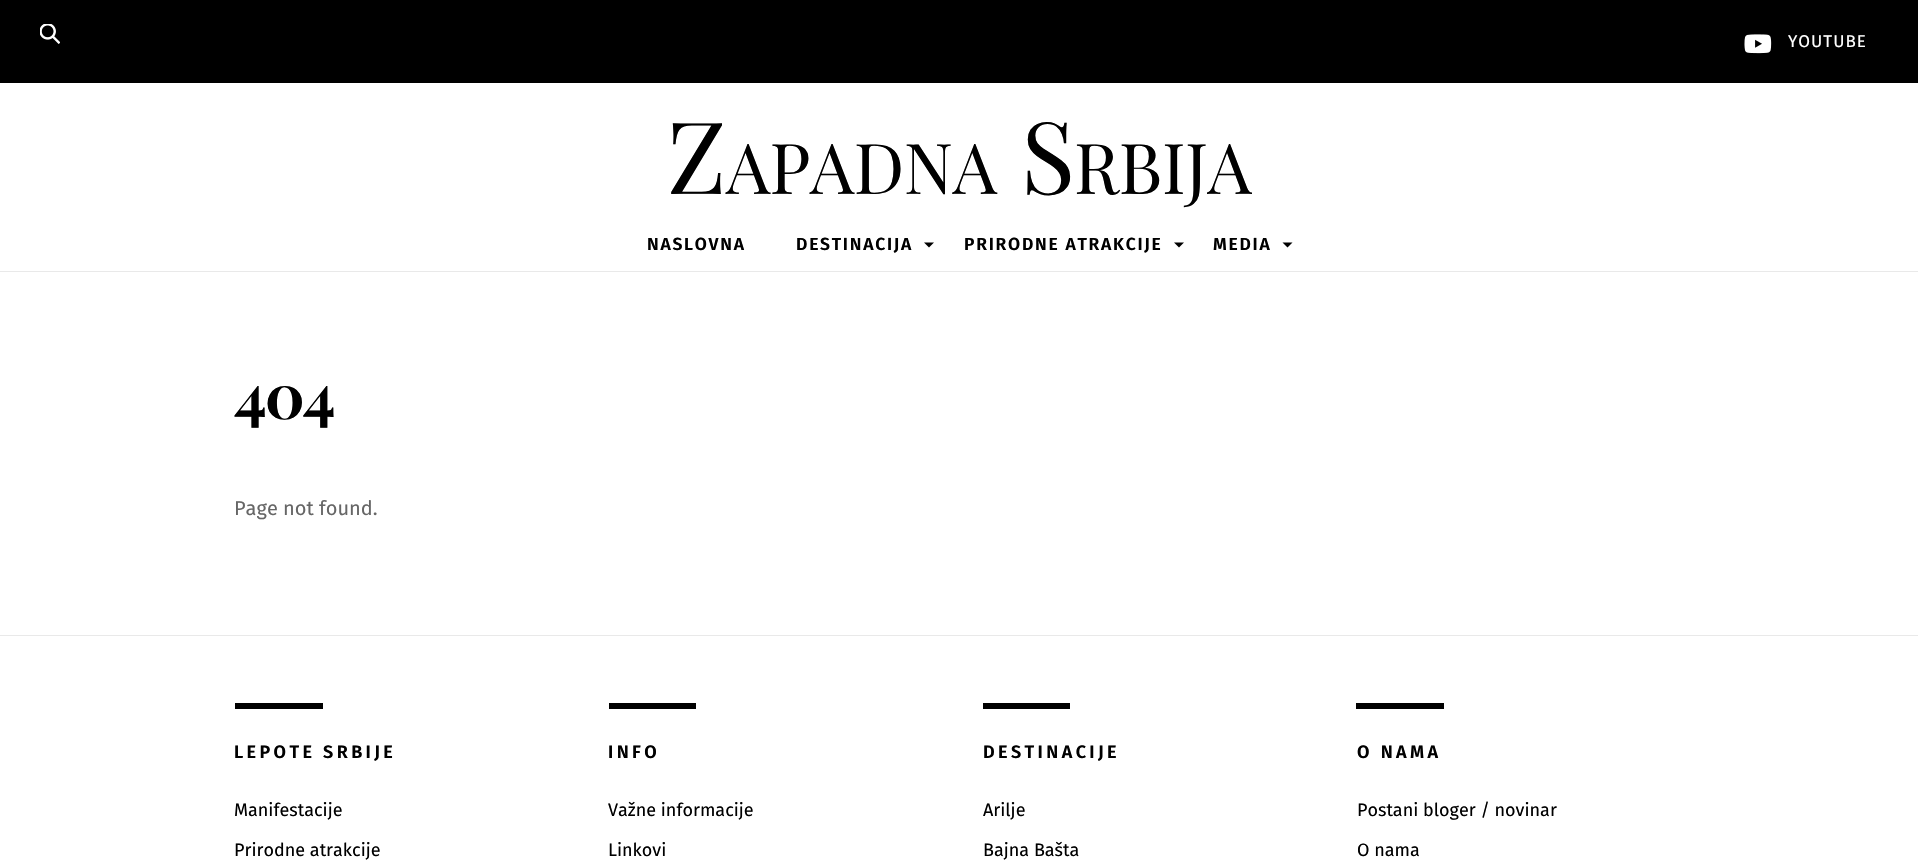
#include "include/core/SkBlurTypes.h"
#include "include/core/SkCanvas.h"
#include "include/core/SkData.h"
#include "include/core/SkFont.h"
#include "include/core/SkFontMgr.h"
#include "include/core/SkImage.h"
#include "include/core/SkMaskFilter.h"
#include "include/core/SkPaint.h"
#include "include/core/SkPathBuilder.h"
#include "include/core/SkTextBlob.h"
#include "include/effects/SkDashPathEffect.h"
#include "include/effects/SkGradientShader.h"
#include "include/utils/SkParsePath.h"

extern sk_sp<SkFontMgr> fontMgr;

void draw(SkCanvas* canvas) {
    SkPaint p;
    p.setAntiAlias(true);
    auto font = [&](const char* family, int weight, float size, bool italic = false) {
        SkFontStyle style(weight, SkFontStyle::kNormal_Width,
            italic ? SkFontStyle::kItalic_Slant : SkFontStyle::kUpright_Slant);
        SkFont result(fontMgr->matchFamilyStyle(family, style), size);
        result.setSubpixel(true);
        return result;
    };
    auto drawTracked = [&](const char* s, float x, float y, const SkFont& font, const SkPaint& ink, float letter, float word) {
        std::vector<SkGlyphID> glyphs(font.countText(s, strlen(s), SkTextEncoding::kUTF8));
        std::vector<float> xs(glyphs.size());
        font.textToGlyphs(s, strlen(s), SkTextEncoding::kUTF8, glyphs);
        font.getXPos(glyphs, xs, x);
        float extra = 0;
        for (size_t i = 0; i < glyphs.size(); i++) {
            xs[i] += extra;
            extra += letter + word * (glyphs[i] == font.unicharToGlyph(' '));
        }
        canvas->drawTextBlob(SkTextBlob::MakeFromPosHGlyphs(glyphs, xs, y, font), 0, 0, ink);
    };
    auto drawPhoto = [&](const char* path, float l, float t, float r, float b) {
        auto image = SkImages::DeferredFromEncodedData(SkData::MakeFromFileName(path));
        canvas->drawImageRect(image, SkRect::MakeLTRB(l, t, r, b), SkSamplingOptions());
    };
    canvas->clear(0xFFFFFFFF);
    p.setColor(0xFFE9E9E9);
    canvas->drawRect(SkRect::MakeLTRB(0, 271, 1918, 272), p);
    p.setColor(0xFF000000);
    canvas->drawRect(SkRect::MakeLTRB(0, 0, 1918, 83), p);
    drawPhoto("media/1.png", 40, 24, 60, 44);
    drawPhoto("media/2.png", 1744, 34, 1772, 54);
    auto font1 = font("Fira Sans", 400, 17);
    p.setColor(0xFFFFFFFF);
    drawTracked("YOUTUBE", 1788, 47, font1, p, 1, 0);
    auto font2 = font("Playfair Display", 400, 100);
    p.setColor(0xFF000000);
    drawTracked("Z", 667, 194, font2, p, -0.5f, 0);
    auto font3 = font("Playfair Display", 400, 70);
    drawTracked("APADNA", 726, 194, font3, p, -0.5f, 0);
    drawTracked("S", 1021, 194, font2, p, -0.5f, 0);
    drawTracked("RBIJA", 1074, 194, font3, p, -0.5f, 0);
    auto font4 = font("Fira Sans", 600, 17.5f);
    drawTracked("NASLOVNA", 647, 250, font4, p, 1.75f, 0);
    drawTracked("DESTINACIJA", 796, 250, font4, p, 1.75f, 0);
    canvas->drawPath(SkPathBuilder().moveTo(924, 242.5f).lineTo(934, 242.5f).lineTo(929, 247.5f).close().detach(), p);
    drawTracked("PRIRODNE ATRAKCIJE", 964, 250, font4, p, 1.75f, 0);
    canvas->drawPath(SkPathBuilder().moveTo(1174, 242.5f).lineTo(1184, 242.5f).lineTo(1179, 247.5f).close().detach(), p);
    drawTracked("MEDIA", 1213, 250, font4, p, 1.75f, 0);
    canvas->drawPath(SkPathBuilder().moveTo(1282.5f, 242.5f).lineTo(1292.5f, 242.5f).lineTo(1287.5f, 247.5f).close().detach(), p);
    auto font5 = font("Playfair Display", 700, 62);
    drawTracked("404", 234, 419, font5, p, -2, 0);
    auto font6 = font("Fira Sans", 400, 20);
    p.setColor(0xFF666666);
    canvas->drawString("Page not found.", 234, 515, font6, p);
    p.setColor(0xFFE9E9E9);
    canvas->drawRect(SkRect::MakeLTRB(0, 635, 1918, 636), p);
    p.setColor(0xFF000000);
    canvas->drawRect(SkRect::MakeLTRB(235, 703, 323, 709), p);
    auto font7 = font("Fira Sans", 600, 18);
    drawTracked("LEPOTE SRBIJE", 234, 758, font7, p, 3.4f, 0);
    auto font8 = font("Fira Sans", 400, 18);
    canvas->drawString("Manifestacije", 234, 816, font8, p);
    canvas->drawString("Prirodne atrakcije", 234, 856, font8, p);
    canvas->drawRect(SkRect::MakeLTRB(609, 703, 696, 709), p);
    drawTracked("INFO", 608, 758, font7, p, 3.4f, 0);
    canvas->drawString("Važne informacije", 608, 816, font8, p);
    canvas->drawString("Linkovi", 608, 856, font8, p);
    canvas->drawRect(SkRect::MakeLTRB(983, 703, 1070, 709), p);
    drawTracked("DESTINACIJE", 983, 758, font7, p, 3.4f, 0);
    canvas->drawString("Arilje", 983, 816, font8, p);
    canvas->drawString("Bajna Bašta", 983, 856, font8, p);
    canvas->drawRect(SkRect::MakeLTRB(1356, 703, 1444, 709), p);
    drawTracked("O NAMA", 1357, 758, font7, p, 3.4f, 0);
    canvas->drawString("Postani bloger / novinar", 1357, 816, font8, p);
    canvas->drawString("O nama", 1357, 856, font8, p);
}
